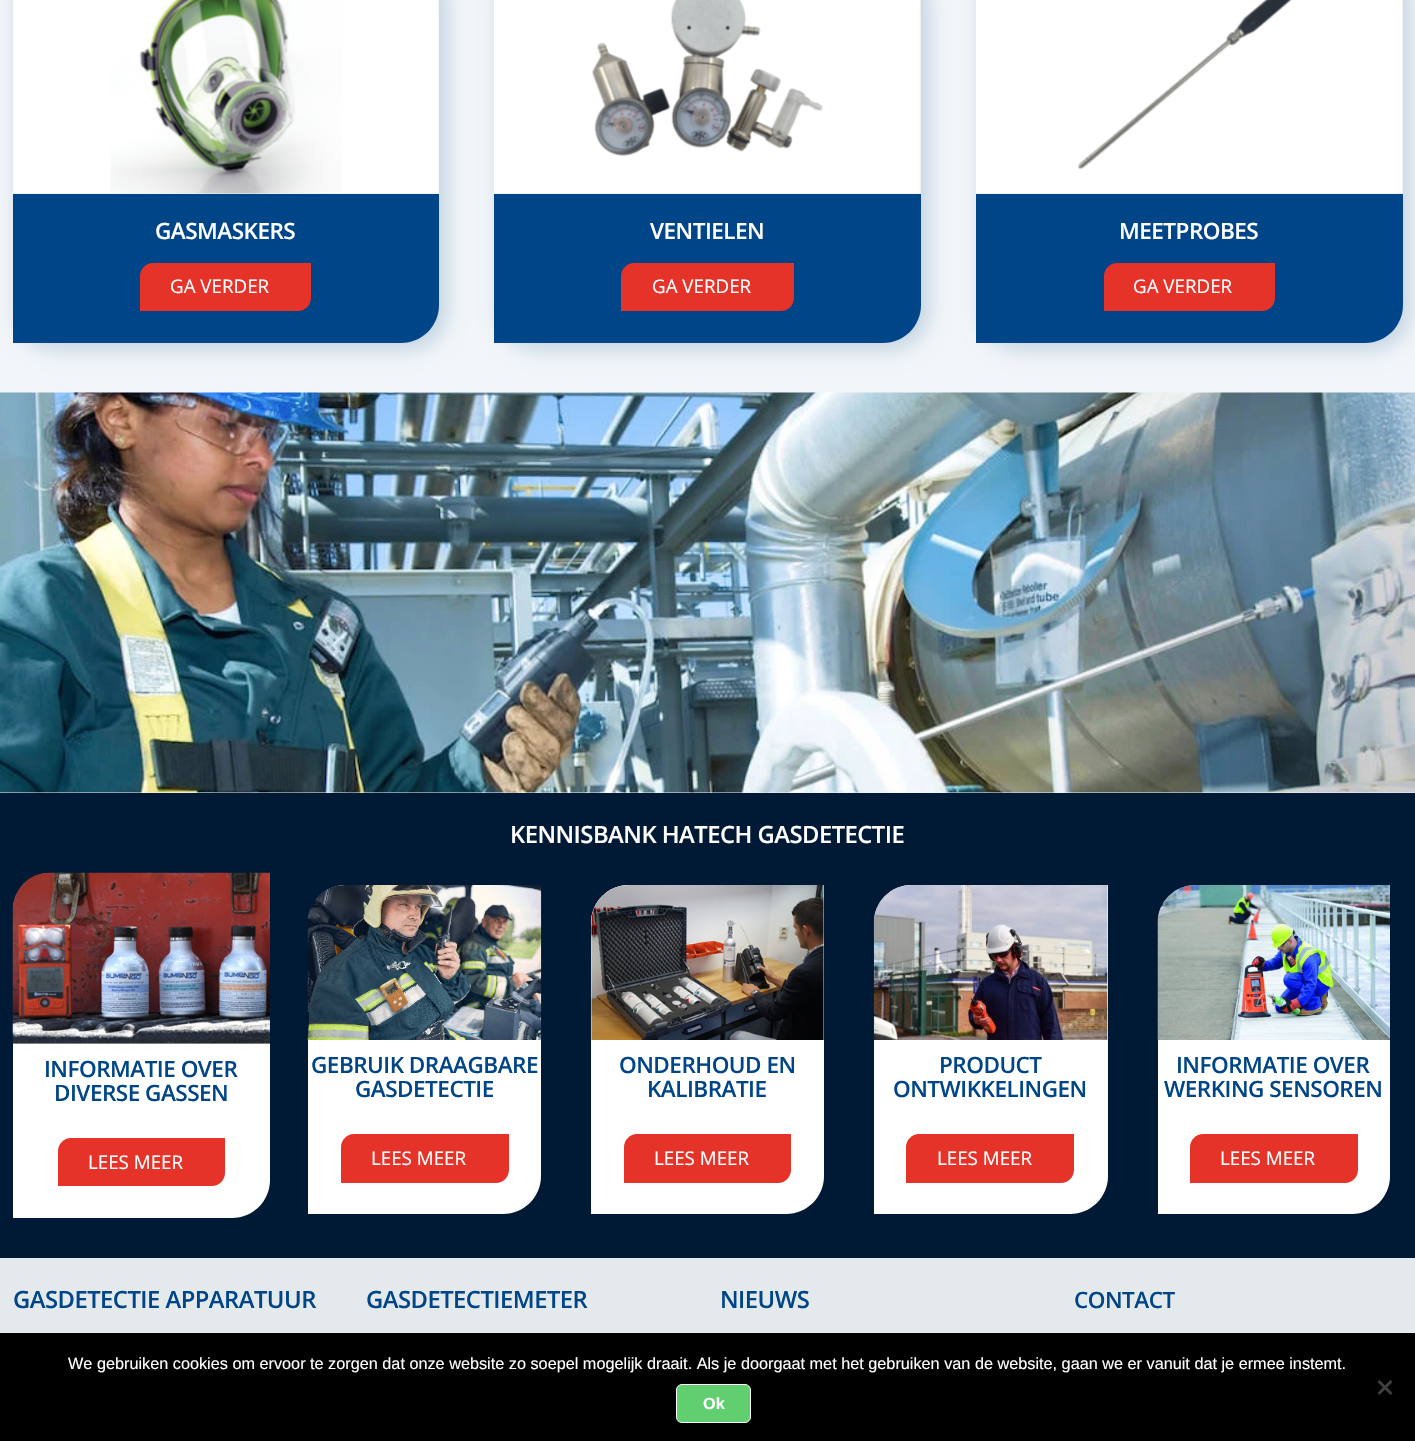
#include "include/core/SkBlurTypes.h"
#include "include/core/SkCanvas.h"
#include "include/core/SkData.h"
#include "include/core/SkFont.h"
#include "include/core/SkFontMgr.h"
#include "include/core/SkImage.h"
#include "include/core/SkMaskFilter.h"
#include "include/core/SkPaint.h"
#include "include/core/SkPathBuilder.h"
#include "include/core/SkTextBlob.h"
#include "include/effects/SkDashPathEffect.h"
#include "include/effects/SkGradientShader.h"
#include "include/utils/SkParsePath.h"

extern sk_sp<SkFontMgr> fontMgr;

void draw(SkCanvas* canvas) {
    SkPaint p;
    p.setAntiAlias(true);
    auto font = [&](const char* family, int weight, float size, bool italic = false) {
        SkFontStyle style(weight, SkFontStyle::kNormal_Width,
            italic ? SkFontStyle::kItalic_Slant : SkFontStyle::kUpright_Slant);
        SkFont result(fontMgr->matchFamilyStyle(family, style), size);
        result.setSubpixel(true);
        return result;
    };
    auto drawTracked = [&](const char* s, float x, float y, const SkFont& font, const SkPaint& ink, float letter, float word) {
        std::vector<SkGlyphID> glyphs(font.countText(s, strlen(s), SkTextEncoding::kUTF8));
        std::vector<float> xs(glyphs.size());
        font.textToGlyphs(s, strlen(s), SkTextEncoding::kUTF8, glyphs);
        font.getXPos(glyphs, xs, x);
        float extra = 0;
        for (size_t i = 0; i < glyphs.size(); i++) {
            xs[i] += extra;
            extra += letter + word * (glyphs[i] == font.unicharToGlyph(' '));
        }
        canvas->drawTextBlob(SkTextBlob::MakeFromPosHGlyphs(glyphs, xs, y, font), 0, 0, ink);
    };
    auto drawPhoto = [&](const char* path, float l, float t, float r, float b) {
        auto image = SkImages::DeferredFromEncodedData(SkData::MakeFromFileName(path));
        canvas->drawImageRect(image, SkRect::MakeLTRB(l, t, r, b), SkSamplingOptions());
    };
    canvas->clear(0xFFF2F6F9);
    p.setColor(0xFFC7D6E4);
    p.setMaskFilter(SkMaskFilter::MakeBlur(kNormal_SkBlurStyle, 9.5f));
    canvas->drawRoundRect(SkRect::MakeLTRB(16, -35, 448, 351), 40, 40, p);
    p.setMaskFilter(nullptr);
    p.setColor(0xFF004587);
    canvas->drawPath(SkPathBuilder().moveTo(51, -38).lineTo(439, -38).lineTo(439, 305).cubicTo(439, 326, 422, 343, 401, 343).lineTo(13, 343).lineTo(13, 0).cubicTo(13, -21, 30, -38, 51, -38).close().detach(), p);
    p.setColor(0xFFEFEFEF);
    canvas->drawRect(SkRect::MakeLTRB(13, 0, 439, 194), p);
    drawPhoto("media/1.png", 13, 0, 439, 194);
    auto font1 = font("Open Sans", 600, 22.5f);
    p.setColor(0xFFFFFFFF);
    drawTracked("GASMASKERS", 155, 239, font1, p, -0.5f, 0);
    p.setColor(0xFFE63329);
    canvas->drawPath(SkPathBuilder().moveTo(153, 263).lineTo(311, 263).lineTo(311, 298).cubicTo(311, 305, 305, 311, 298, 311).lineTo(140, 311).lineTo(140, 276).cubicTo(140, 269, 146, 263, 153, 263).close().detach(), p);
    auto font2 = font("Open Sans", 400, 18.75f);
    p.setColor(0xFFFFFFFF);
    canvas->drawString("GA VERDER", 170, 293, font2, p);
    p.setColor(0xFFC7D6E4);
    p.setMaskFilter(SkMaskFilter::MakeBlur(kNormal_SkBlurStyle, 9.5f));
    canvas->drawRoundRect(SkRect::MakeLTRB(498, -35, 930, 351), 40, 40, p);
    p.setMaskFilter(nullptr);
    p.setColor(0xFF004587);
    canvas->drawPath(SkPathBuilder().moveTo(532, -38).lineTo(921, -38).lineTo(921, 305).cubicTo(921, 326, 904, 343, 883, 343).lineTo(494, 343).lineTo(494, 0).cubicTo(494, -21, 511, -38, 532, -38).close().detach(), p);
    p.setColor(0xFFEFEFEF);
    canvas->drawRect(SkRect::MakeLTRB(494, 0, 921, 194), p);
    drawPhoto("media/2.png", 494, 0, 920, 194);
    p.setColor(0xFFFFFFFF);
    drawTracked("VENTIELEN", 650, 239, font1, p, -0.5f, 0);
    p.setColor(0xFFE63329);
    canvas->drawPath(SkPathBuilder().moveTo(634, 263).lineTo(794, 263).lineTo(794, 298).cubicTo(794, 305, 788, 311, 781, 311).lineTo(621, 311).lineTo(621, 276).cubicTo(621, 269, 627, 263, 634, 263).close().detach(), p);
    p.setColor(0xFFFFFFFF);
    canvas->drawString("GA VERDER", 652, 293, font2, p);
    p.setColor(0xFFC7D6E4);
    p.setMaskFilter(SkMaskFilter::MakeBlur(kNormal_SkBlurStyle, 9.5f));
    canvas->drawRoundRect(SkRect::MakeLTRB(980, -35, 1411, 351), 40, 40, p);
    p.setMaskFilter(nullptr);
    p.setColor(0xFF004587);
    canvas->drawPath(SkPathBuilder().moveTo(1014, -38).lineTo(1403, -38).lineTo(1403, 305).cubicTo(1403, 326, 1386, 343, 1365, 343).lineTo(976, 343).lineTo(976, 0).cubicTo(976, -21, 993, -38, 1014, -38).close().detach(), p);
    p.setColor(0xFFEFEFEF);
    canvas->drawRect(SkRect::MakeLTRB(976, 0, 1403, 194), p);
    drawPhoto("media/3.png", 976, 0, 1403, 194);
    p.setColor(0xFFFFFFFF);
    drawTracked("MEETPROBES", 1119, 239, font1, p, -0.5f, 0);
    p.setColor(0xFFE63329);
    canvas->drawPath(SkPathBuilder().moveTo(1117, 263).lineTo(1275, 263).lineTo(1275, 298).cubicTo(1275, 305, 1269, 311, 1262, 311).lineTo(1104, 311).lineTo(1104, 276).cubicTo(1104, 269, 1110, 263, 1117, 263).close().detach(), p);
    p.setColor(0xFFFFFFFF);
    canvas->drawString("GA VERDER", 1133, 293, font2, p);
    drawPhoto("media/4.png", 0, 392, 1415, 793);
    p.setColor(0xFF001935);
    canvas->drawRect(SkRect::MakeLTRB(0, 793, 1415, 1258), p);
    auto font3 = font("Open Sans", 600, 23.75f);
    p.setColor(0xFFFFFFFF);
    drawTracked("KENNISBANK HATECH GASDETECTIE", 510, 843, font3, p, -0.5f, 0);
    canvas->drawPath(SkPathBuilder().moveTo(51, 873).lineTo(270, 873).lineTo(270, 1180).cubicTo(270, 1201, 253, 1218, 232, 1218).lineTo(13, 1218).lineTo(13, 911).cubicTo(13, 890, 30, 873, 51, 873).close().detach(), p);
    p.setColor(0xFFEFEFEF);
    canvas->drawPath(SkPathBuilder().moveTo(51, 873).lineTo(270, 873).lineTo(270, 1044).lineTo(13, 1044).lineTo(13, 911).cubicTo(13, 890, 30, 873, 51, 873).close().detach(), p);
    drawPhoto("media/5.png", 12, 872, 270, 1044);
    p.setColor(0xFF004587);
    drawTracked("INFORMATIE OVER", 44, 1077, font1, p, -0.5f, 0);
    drawTracked("DIVERSE GASSEN", 54, 1101, font1, p, -0.5f, 0);
    p.setColor(0xFFE63329);
    canvas->drawPath(SkPathBuilder().moveTo(71, 1138).lineTo(225, 1138).lineTo(225, 1173).cubicTo(225, 1180, 219, 1186, 212, 1186).lineTo(58, 1186).lineTo(58, 1151).cubicTo(58, 1144, 64, 1138, 71, 1138).close().detach(), p);
    p.setColor(0xFFFFFFFF);
    canvas->drawString("LEES MEER", 88, 1169, font2, p);
    canvas->drawPath(SkPathBuilder().moveTo(346, 885).lineTo(541, 885).lineTo(541, 1176).cubicTo(541, 1197, 524, 1214, 503, 1214).lineTo(308, 1214).lineTo(308, 923).cubicTo(308, 902, 325, 885, 346, 885).close().detach(), p);
    drawPhoto("media/6.png", 307, 885, 542, 1040);
    p.setColor(0xFF004587);
    drawTracked("GEBRUIK DRAAGBARE", 311, 1073, font1, p, -0.5f, 0);
    drawTracked("GASDETECTIE", 355, 1097, font1, p, -0.5f, 0);
    p.setColor(0xFFE63329);
    canvas->drawPath(SkPathBuilder().moveTo(354, 1134).lineTo(509, 1134).lineTo(509, 1170).cubicTo(509, 1177, 503, 1183, 496, 1183).lineTo(341, 1183).lineTo(341, 1147).cubicTo(341, 1140, 347, 1134, 354, 1134).close().detach(), p);
    p.setColor(0xFFFFFFFF);
    canvas->drawString("LEES MEER", 371, 1165, font2, p);
    canvas->drawPath(SkPathBuilder().moveTo(629, 885).lineTo(824, 885).lineTo(824, 1176).cubicTo(824, 1197, 807, 1214, 786, 1214).lineTo(591, 1214).lineTo(591, 923).cubicTo(591, 902, 608, 885, 629, 885).close().detach(), p);
    p.setColor(0xFFEFEFEF);
    canvas->drawPath(SkPathBuilder().moveTo(629, 885).lineTo(824, 885).lineTo(824, 1040).lineTo(591, 1040).lineTo(591, 923).cubicTo(591, 902, 608, 885, 629, 885).close().detach(), p);
    drawPhoto("media/7.png", 591, 885, 824, 1040);
    p.setColor(0xFF004587);
    drawTracked("ONDERHOUD EN", 619, 1073, font1, p, -0.5f, 0);
    drawTracked("KALIBRATIE", 647, 1097, font1, p, -0.5f, 0);
    p.setColor(0xFFE63329);
    canvas->drawPath(SkPathBuilder().moveTo(637, 1134).lineTo(791, 1134).lineTo(791, 1170).cubicTo(791, 1177, 785, 1183, 778, 1183).lineTo(624, 1183).lineTo(624, 1147).cubicTo(624, 1140, 630, 1134, 637, 1134).close().detach(), p);
    p.setColor(0xFFFFFFFF);
    canvas->drawString("LEES MEER", 654, 1165, font2, p);
    canvas->drawPath(SkPathBuilder().moveTo(912, 885).lineTo(1108, 885).lineTo(1108, 1176).cubicTo(1108, 1197, 1091, 1214, 1070, 1214).lineTo(874, 1214).lineTo(874, 923).cubicTo(874, 902, 891, 885, 912, 885).close().detach(), p);
    p.setColor(0xFFEFEFEF);
    canvas->drawPath(SkPathBuilder().moveTo(912, 885).lineTo(1108, 885).lineTo(1108, 1040).lineTo(874, 1040).lineTo(874, 923).cubicTo(874, 902, 891, 885, 912, 885).close().detach(), p);
    drawPhoto("media/8.png", 873, 885, 1108, 1040);
    p.setColor(0xFF004587);
    drawTracked("PRODUCT", 939, 1073, font1, p, -0.5f, 0);
    drawTracked("ONTWIKKELINGEN", 893, 1097, font1, p, -0.5f, 0);
    p.setColor(0xFFE63329);
    canvas->drawPath(SkPathBuilder().moveTo(919, 1134).lineTo(1074, 1134).lineTo(1074, 1170).cubicTo(1074, 1177, 1068, 1183, 1061, 1183).lineTo(906, 1183).lineTo(906, 1147).cubicTo(906, 1140, 912, 1134, 919, 1134).close().detach(), p);
    p.setColor(0xFFFFFFFF);
    canvas->drawString("LEES MEER", 937, 1165, font2, p);
    canvas->drawPath(SkPathBuilder().moveTo(1196, 885).lineTo(1390, 885).lineTo(1390, 1176).cubicTo(1390, 1197, 1373, 1214, 1352, 1214).lineTo(1158, 1214).lineTo(1158, 923).cubicTo(1158, 902, 1175, 885, 1196, 885).close().detach(), p);
    drawPhoto("media/9.png", 1157, 885, 1390, 1040);
    p.setColor(0xFF004587);
    drawTracked("INFORMATIE OVER", 1176, 1073, font1, p, -0.5f, 0);
    drawTracked("WERKING SENSOREN", 1164, 1097, font1, p, -0.5f, 0);
    p.setColor(0xFFE63329);
    canvas->drawPath(SkPathBuilder().moveTo(1203, 1134).lineTo(1358, 1134).lineTo(1358, 1170).cubicTo(1358, 1177, 1352, 1183, 1345, 1183).lineTo(1190, 1183).lineTo(1190, 1147).cubicTo(1190, 1140, 1196, 1134, 1203, 1134).close().detach(), p);
    p.setColor(0xFFFFFFFF);
    canvas->drawString("LEES MEER", 1220, 1165, font2, p);
    p.setColor(0xFFE4E9EB);
    canvas->drawRect(SkRect::MakeLTRB(0, 1258, 1415, 1333), p);
    p.setColor(0xFF004587);
    {
        const struct { const char* s; float x, y; } items[] = {
            {"GASDETECTIE APPARATUUR", 13, 1308},
            {"GASDETECTIEMETER", 366, 1308},
            {"NIEUWS", 720, 1308},
        };
        for (auto [s, x, y] : items) {
            drawTracked(s, x, y, font3, p, -0.5f, 0);
        }
    }
    drawTracked("CONTACT", 1074, 1308, font1, p, -0.5f, 0);
    p.setColor(0xFF000000);
    canvas->drawRect(SkRect::MakeLTRB(0, 1333, 1415, 1441), p);
    auto font4 = font("Liberation Sans", 400, 16.25f);
    p.setColor(0xFFFFFFFF);
    canvas->drawString("We gebruiken cookies om ervoor te zorgen dat onze website zo soepel mogelijk draait. Als je doorgaat met het gebruiken van de website, gaan we er vanuit dat je ermee instemt.", 68, 1369, font4, p);
    p.setColor(0xFF404040);
    canvas->drawPath(SkPathBuilder().moveTo(1390.5f, 1380).lineTo(1392.5f, 1382).lineTo(1379.5f, 1395).lineTo(1377.5f, 1393).close().detach(), p);
    canvas->drawPath(SkPathBuilder().moveTo(1377.5f, 1382).lineTo(1379.5f, 1380).lineTo(1392.5f, 1393).lineTo(1390.5f, 1395).close().detach(), p);
    p.setColor(0xFF61CE70);
    canvas->drawRoundRect(SkRect::MakeLTRB(676.5f, 1384.5f, 750.5f, 1422.5f), 5.5f, 5.5f, p);
    p.setStyle(SkPaint::kStroke_Style);
    p.setStrokeWidth(1);
    p.setColor(0xFFFFFFFF);
    canvas->drawRoundRect(SkRect::MakeLTRB(676.5f, 1384.5f, 750.5f, 1422.5f), 5.5f, 5.5f, p);
    auto font5 = font("Liberation Sans", 700, 16.25f);
    p.setStyle(SkPaint::kFill_Style);
    canvas->drawString("Ok", 703, 1409, font5, p);
}
